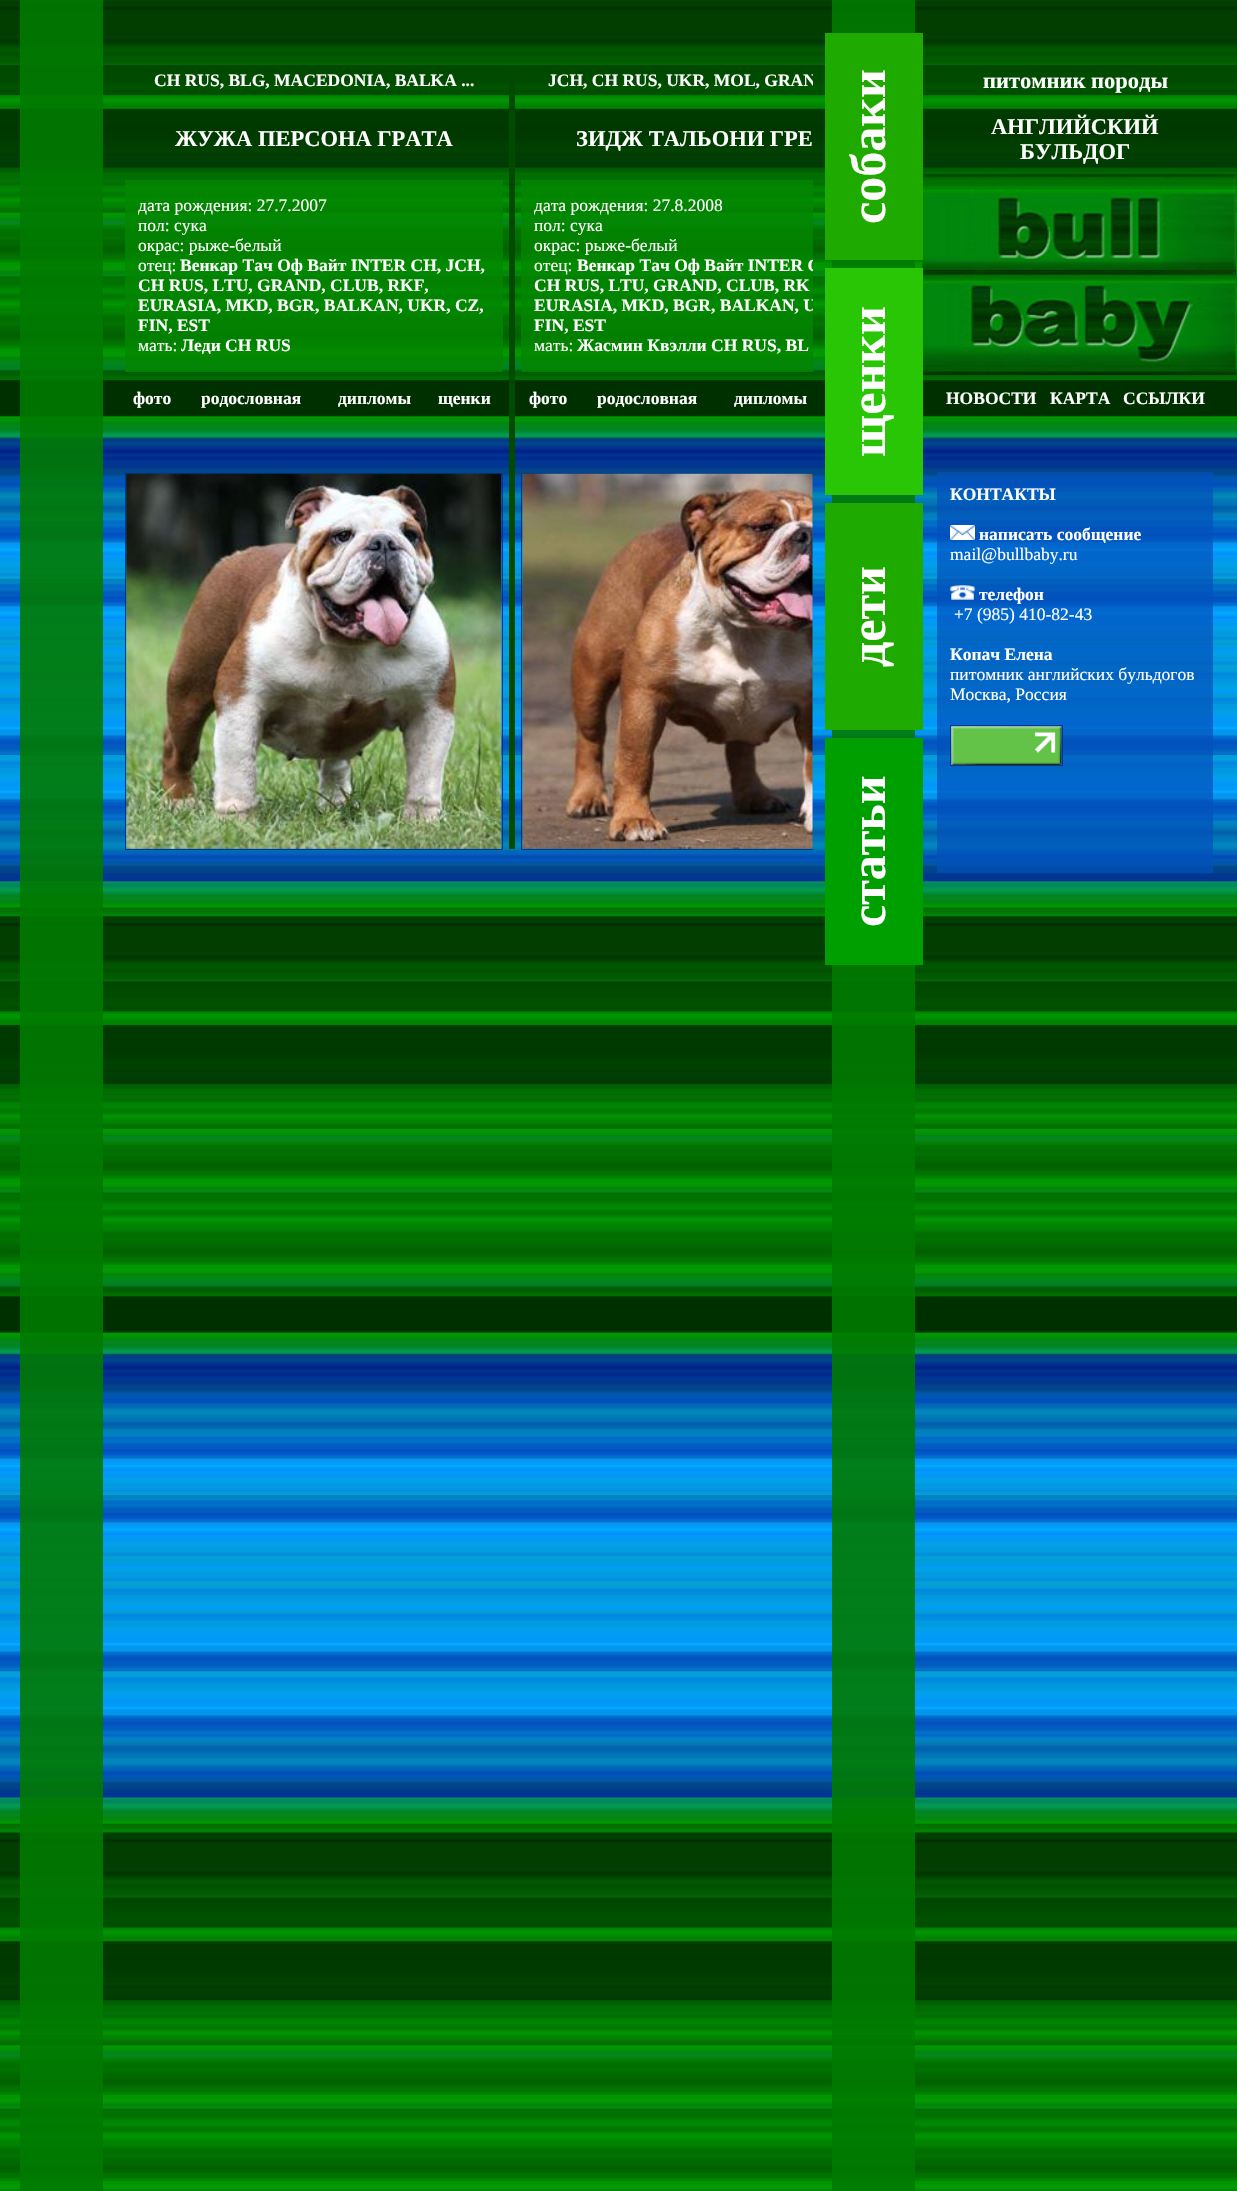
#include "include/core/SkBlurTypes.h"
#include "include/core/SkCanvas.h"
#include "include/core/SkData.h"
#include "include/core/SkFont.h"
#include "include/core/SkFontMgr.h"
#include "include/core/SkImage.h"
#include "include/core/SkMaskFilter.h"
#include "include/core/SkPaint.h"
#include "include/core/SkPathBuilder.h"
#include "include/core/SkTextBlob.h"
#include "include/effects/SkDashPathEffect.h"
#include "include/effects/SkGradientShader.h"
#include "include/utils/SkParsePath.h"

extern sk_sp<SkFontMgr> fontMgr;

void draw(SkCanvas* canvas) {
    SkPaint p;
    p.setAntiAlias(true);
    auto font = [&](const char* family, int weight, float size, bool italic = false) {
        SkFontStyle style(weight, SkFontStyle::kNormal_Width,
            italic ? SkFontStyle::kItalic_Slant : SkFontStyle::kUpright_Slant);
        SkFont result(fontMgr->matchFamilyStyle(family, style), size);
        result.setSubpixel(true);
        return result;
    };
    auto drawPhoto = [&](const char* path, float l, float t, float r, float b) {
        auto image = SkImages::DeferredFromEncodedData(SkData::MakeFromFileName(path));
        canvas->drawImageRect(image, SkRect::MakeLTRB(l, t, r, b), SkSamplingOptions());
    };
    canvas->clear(0xFFFFFFFF);
    drawPhoto("media/1.png", 0, 0, 1237, 2191);
    p.setColor(0xE3007900);
    canvas->drawRect(SkRect::MakeLTRB(20, 0, 103, 2191), p);
    auto font1 = font("Liberation Serif", 700, 17.5f);
    p.setColor(0xFFFFFFFF);
    canvas->drawString("CH RUS, BLG, MACEDONIA, BАLKA ...", 154, 86, font1, p);
    auto font2 = font("Liberation Serif", 700, 22.5f);
    canvas->drawString("ЖУЖА ПЕРСОНА ГРАТА", 175, 146, font2, p);
    p.setColor(0xCC028600);
    canvas->drawRect(SkRect::MakeLTRB(125, 180, 503, 372), p);
    auto font3 = font("Liberation Serif", 400, 17.5f);
    p.setColor(0xFFFFFFFF);
    {
        const struct { const char* s; float x, y; } items[] = {
            {"дата рождения: 27.7.2007", 138, 211},
            {"пол: сука", 138, 231},
            {"окрас: рыже-белый", 138, 251},
            {"отец:", 138, 271},
        };
        for (auto [s, x, y] : items) {
            canvas->drawString(s, x, y, font3, p);
        }
    }
    {
        const struct { const char* s; float x, y; } items[] = {
            {"Венкар Тач Оф Вайт INTER CH, JCH,", 180, 271},
            {"CH RUS, LTU, GRAND, CLUB, RKF,", 138, 291},
            {"EURASIA, MKD, BGR, BALKAN, UKR, CZ,", 138, 311},
            {"FIN, EST", 138, 331},
        };
        for (auto [s, x, y] : items) {
            canvas->drawString(s, x, y, font1, p);
        }
    }
    canvas->drawString("мать:", 138, 351, font3, p);
    {
        const struct { const char* s; float x, y; } items[] = {
            {"Леди CH RUS", 181, 351},
            {"фото", 133, 404},
            {"родословная", 201, 404},
            {"дипломы", 338, 404},
            {"щенки", 438, 404},
        };
        for (auto [s, x, y] : items) {
            canvas->drawString(s, x, y, font1, p);
        }
    }
    p.setStyle(SkPaint::kStroke_Style);
    p.setStrokeWidth(1);
    p.setColor(0xFF003891);
    canvas->drawRect(SkRect::MakeLTRB(125.5f, 473.5f, 502.5f, 849.5f), p);
    drawPhoto("media/2.png", 126, 473, 502, 849);
    p.setStyle(SkPaint::kFill_Style);
    p.setColor(0xFF004B01);
    canvas->drawRect(SkRect::MakeLTRB(509, 68, 515, 849), p);
    canvas->save();
    canvas->clipRect(SkRect::MakeLTRB(125, 68, 813, 875));
    p.setColor(0xFFFFFFFF);
    canvas->drawString("JCH, CH RUS, UKR, MOL, GRAN", 548, 86, font1, p);
    canvas->restore();
    canvas->drawString("ЗИДЖ ТАЛЬОНИ ГРЕ", 576, 146, font2, p);
    p.setColor(0xCC028600);
    canvas->drawRect(SkRect::MakeLTRB(521, 180, 813, 372), p);
    p.setColor(0xFFFFFFFF);
    {
        const struct { const char* s; float x, y; } items[] = {
            {"дата рождения: 27.8.2008", 534, 211},
            {"пол: сука", 534, 231},
            {"окрас: рыже-белый", 534, 251},
            {"отец:", 534, 271},
        };
        for (auto [s, x, y] : items) {
            canvas->drawString(s, x, y, font3, p);
        }
    }
    canvas->save();
    canvas->clipRect(SkRect::MakeLTRB(125, 68, 813, 875));
    canvas->drawString("Венкар Тач Оф Вайт INTER C", 577, 271, font1, p);
    canvas->restore();
    canvas->drawString("CH RUS, LTU, GRAND, CLUB, RK", 534, 291, font1, p);
    canvas->save();
    canvas->clipRect(SkRect::MakeLTRB(125, 68, 813, 875));
    canvas->drawString("EURASIA, MKD, BGR, BALKAN, U", 534, 311, font1, p);
    canvas->restore();
    canvas->drawString("FIN, EST", 534, 331, font1, p);
    canvas->drawString("мать:", 534, 351, font3, p);
    {
        const struct { const char* s; float x, y; } items[] = {
            {"Жасмин Квэлли CH RUS, BL", 577, 351},
            {"фото", 529, 404},
            {"родословная", 597, 404},
            {"дипломы", 734, 404},
        };
        for (auto [s, x, y] : items) {
            canvas->drawString(s, x, y, font1, p);
        }
    }
    canvas->save();
    canvas->clipRect(SkRect::MakeLTRB(521, 473, 813, 875));
    p.setStyle(SkPaint::kStroke_Style);
    p.setColor(0xFF003891);
    canvas->drawRect(SkRect::MakeLTRB(521.5f, 473.5f, 898.5f, 849.5f), p);
    canvas->restore();
    drawPhoto("media/3.png", 522, 473, 813, 849);
    p.setStyle(SkPaint::kFill_Style);
    p.setColor(0xE3007900);
    canvas->drawRect(SkRect::MakeLTRB(832, 0, 915, 2191), p);
    drawPhoto("media/4.png", 922, 173, 1237, 375);
    p.setColor(0xFF1FAA00);
    canvas->drawRect(SkRect::MakeLTRB(825, 33, 923, 260), p);
    auto font4 = font("Liberation Serif", 700, 50);
    p.setColor(0xFFFFFFFF);
    canvas->save();
    canvas->rotate(-90, 885, 224);
    canvas->drawString("собаки", 885, 224, font4, p);
    canvas->restore();
    p.setColor(0xFF29C606);
    canvas->drawRect(SkRect::MakeLTRB(825, 268, 923, 495), p);
    p.setColor(0xFFFFFFFF);
    canvas->save();
    canvas->rotate(-90, 885, 457);
    canvas->drawString("щенки", 885, 457, font4, p);
    canvas->restore();
    p.setColor(0xFF1FAA00);
    canvas->drawRect(SkRect::MakeLTRB(825, 503, 923, 730), p);
    p.setColor(0xFFFFFFFF);
    canvas->save();
    canvas->rotate(-90, 885, 667);
    canvas->drawString("дети", 885, 667, font4, p);
    canvas->restore();
    p.setColor(0xFF009F00);
    canvas->drawRect(SkRect::MakeLTRB(825, 738, 923, 965), p);
    p.setColor(0xFFFFFFFF);
    canvas->save();
    canvas->rotate(-90, 885, 927);
    canvas->drawString("статьи", 885, 927, font4, p);
    canvas->restore();
    {
        const struct { const char* s; float x, y; } items[] = {
            {"питомник породы", 983, 88},
            {"АНГЛИЙСКИЙ", 991, 134},
            {"БУЛЬДОГ", 1020, 159},
        };
        for (auto [s, x, y] : items) {
            canvas->drawString(s, x, y, font2, p);
        }
    }
    {
        const struct { const char* s; float x, y; } items[] = {
            {"НОВОСТИ", 946, 404},
            {"КАРТА", 1050, 404},
            {"ССЫЛКИ", 1123, 404},
        };
        for (auto [s, x, y] : items) {
            canvas->drawString(s, x, y, font1, p);
        }
    }
    p.setColor(0xB30150BB);
    canvas->drawRect(SkRect::MakeLTRB(937, 472, 1213, 873), p);
    p.setColor(0xFFFFFFFF);
    canvas->drawString("КОНТАКТЫ", 950, 500, font1, p);
    drawPhoto("media/5.png", 950, 525, 975, 540);
    canvas->drawString("написать сообщение", 979, 540, font1, p);
    canvas->drawString("mail@bullbaby.ru", 950, 560, font3, p);
    drawPhoto("media/6.png", 950, 585, 975, 600);
    canvas->drawString("телефон", 979, 600, font1, p);
    canvas->drawString("+7 (985) 410-82-43", 954, 620, font3, p);
    canvas->drawString("Копач Елена", 950, 660, font1, p);
    canvas->drawString("питомник английских бульдогов", 950, 680, font3, p);
    canvas->drawString("Москва, Россия", 950, 700, font3, p);
    p.setStyle(SkPaint::kStroke_Style);
    p.setColor(0xFF003891);
    canvas->drawRect(SkRect::MakeLTRB(950.5f, 725.5f, 1062.5f, 765.5f), p);
    drawPhoto("media/7.png", 951, 726, 1062, 765);
}
